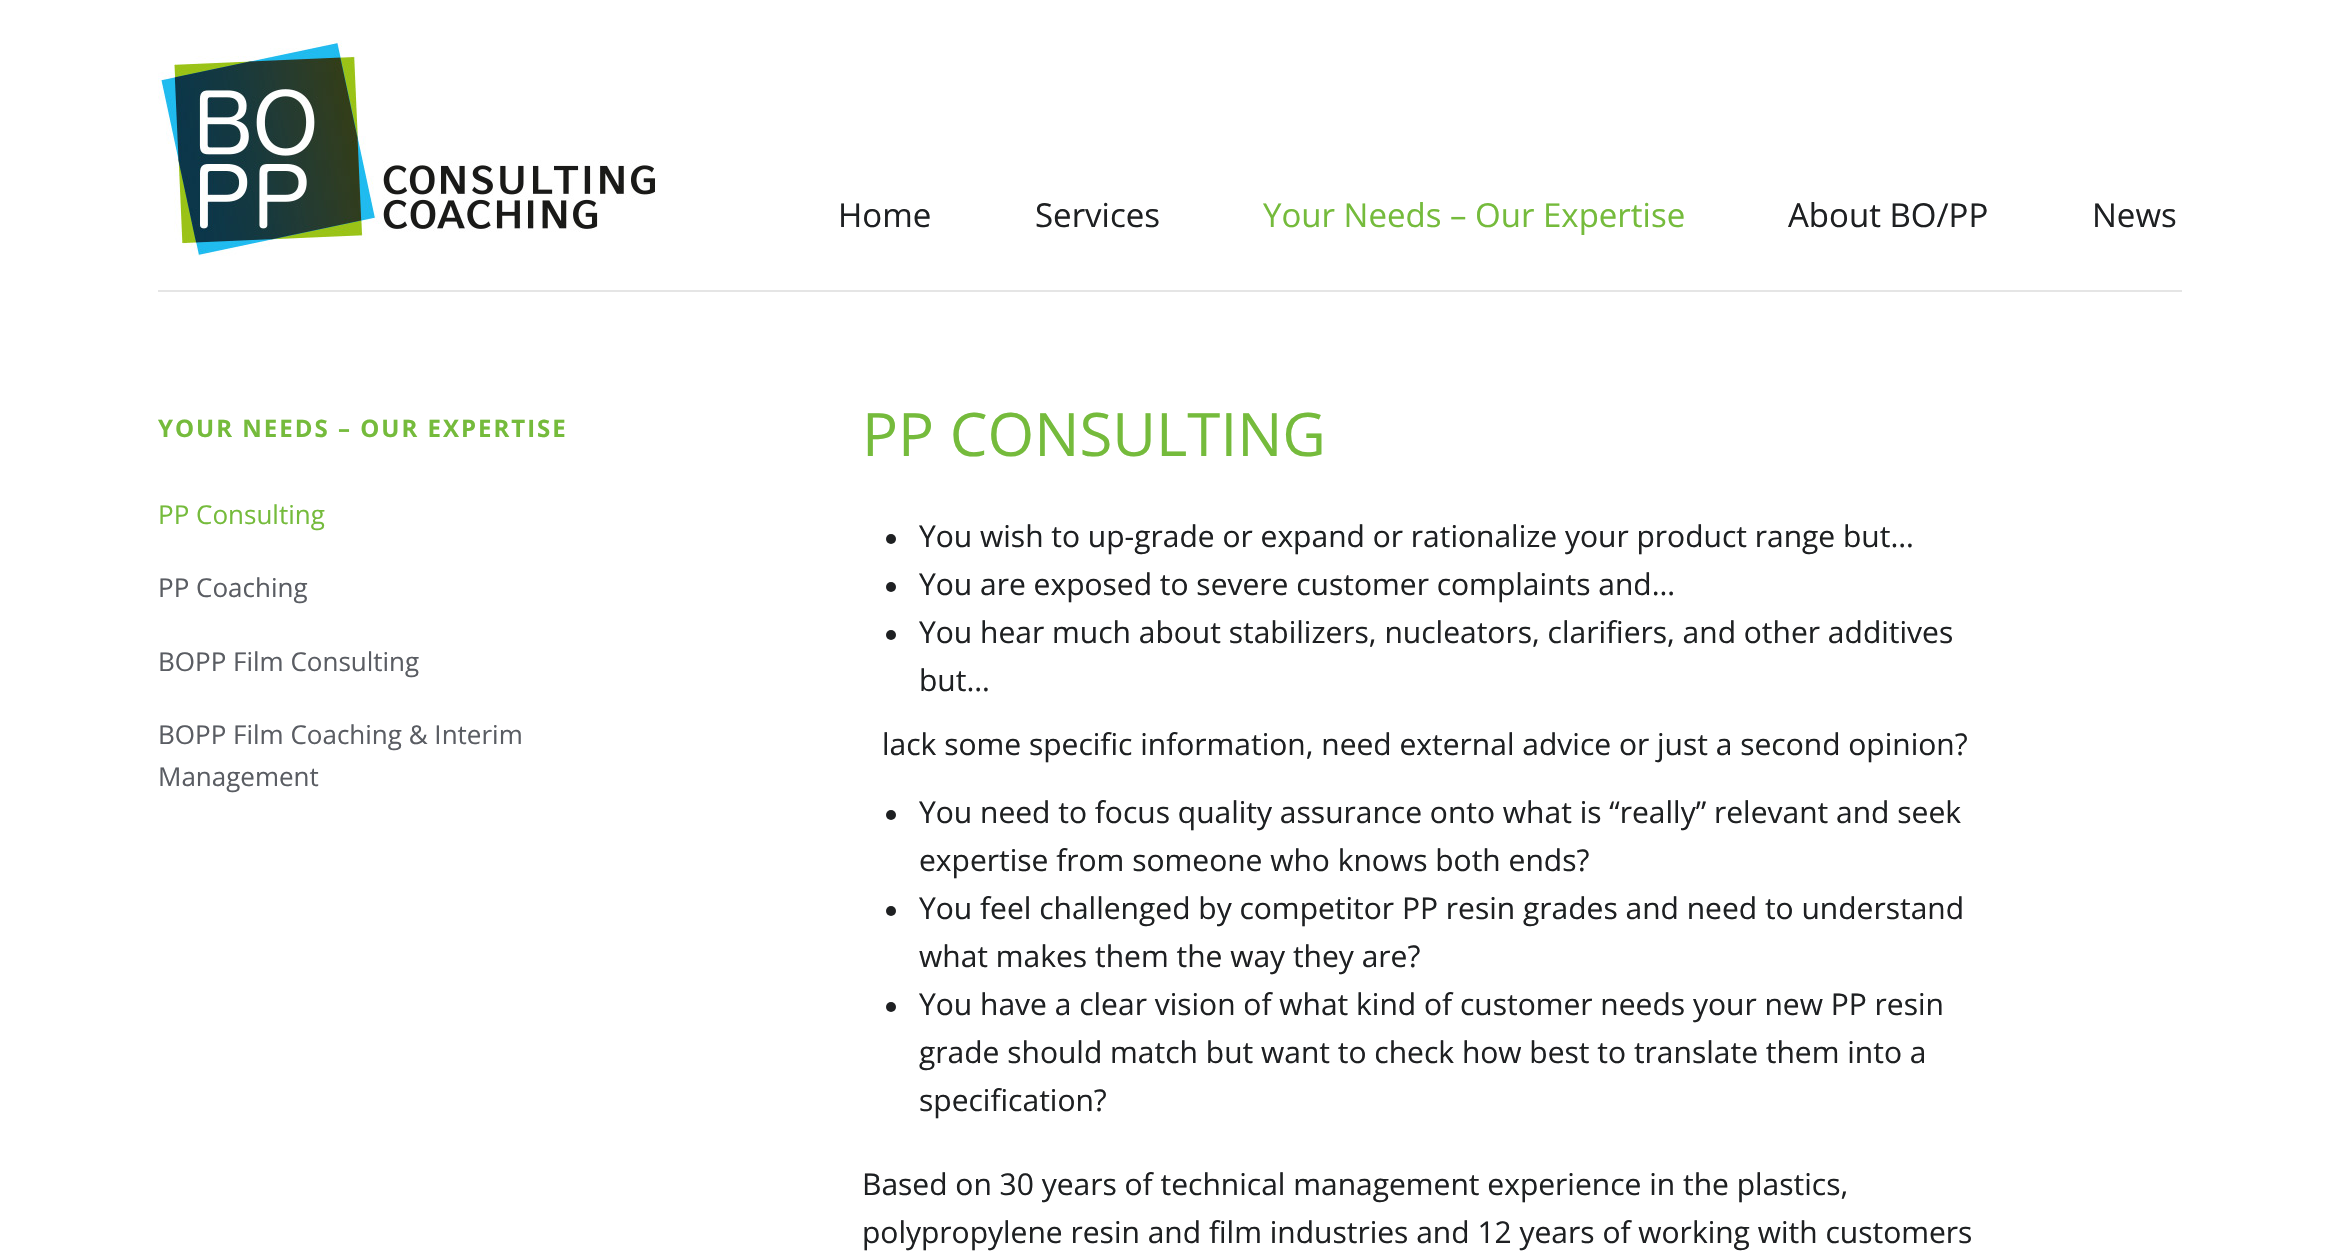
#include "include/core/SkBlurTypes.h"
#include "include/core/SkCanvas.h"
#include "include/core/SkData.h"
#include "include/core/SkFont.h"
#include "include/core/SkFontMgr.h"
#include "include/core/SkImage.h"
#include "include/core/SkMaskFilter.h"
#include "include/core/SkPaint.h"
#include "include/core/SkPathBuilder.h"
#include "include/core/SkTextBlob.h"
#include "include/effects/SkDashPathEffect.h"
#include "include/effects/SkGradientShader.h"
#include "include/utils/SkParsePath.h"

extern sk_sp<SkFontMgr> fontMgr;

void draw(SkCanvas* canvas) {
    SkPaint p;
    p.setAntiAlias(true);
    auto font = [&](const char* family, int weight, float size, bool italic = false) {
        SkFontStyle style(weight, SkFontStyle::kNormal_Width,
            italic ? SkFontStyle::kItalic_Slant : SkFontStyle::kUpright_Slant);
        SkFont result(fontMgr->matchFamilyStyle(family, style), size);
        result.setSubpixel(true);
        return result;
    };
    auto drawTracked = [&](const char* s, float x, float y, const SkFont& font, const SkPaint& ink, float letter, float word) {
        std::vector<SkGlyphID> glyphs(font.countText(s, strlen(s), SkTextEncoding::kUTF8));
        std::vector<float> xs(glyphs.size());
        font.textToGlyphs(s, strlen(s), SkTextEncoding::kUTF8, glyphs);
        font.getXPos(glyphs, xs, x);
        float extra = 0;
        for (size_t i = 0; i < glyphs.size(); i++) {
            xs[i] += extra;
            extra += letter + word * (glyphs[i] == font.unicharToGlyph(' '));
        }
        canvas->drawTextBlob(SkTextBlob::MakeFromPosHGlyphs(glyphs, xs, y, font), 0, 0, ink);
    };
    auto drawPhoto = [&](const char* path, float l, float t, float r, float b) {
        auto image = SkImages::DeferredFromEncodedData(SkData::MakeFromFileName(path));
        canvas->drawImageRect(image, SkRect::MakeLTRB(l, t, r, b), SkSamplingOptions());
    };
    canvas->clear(0xFFFFFFFF);
    p.setColor(0xFFE5E5E5);
    canvas->drawRect(SkRect::MakeLTRB(158, 290, 2182, 292), p);
    drawPhoto("media/1.png", 158, 40, 658, 256);
    auto font1 = font("Open Sans", 400, 33);
    p.setColor(0xFF1E2022);
    canvas->drawString("Home", 838, 227, font1, p);
    canvas->drawString("Services", 1035, 227, font1, p);
    p.setColor(0xFF75BB3C);
    canvas->drawString("Your Needs – Our Expertise", 1263, 227, font1, p);
    p.setColor(0xFF1E2022);
    canvas->drawString("About BO/PP", 1788, 227, font1, p);
    canvas->drawString("News", 2092, 227, font1, p);
    auto font2 = font("Open Sans", 700, 24);
    p.setColor(0xFF75BB3C);
    drawTracked("YOUR NEEDS – OUR EXPERTISE", 158, 437, font2, p, 2, 0);
    auto font3 = font("Open Sans", 400, 26);
    canvas->drawString("PP Consulting", 158, 524, font3, p);
    p.setColor(0xFF5A5D63);
    {
        const struct { const char* s; float x, y; } items[] = {
            {"PP Coaching", 158, 597},
            {"BOPP Film Consulting", 158, 671},
            {"BOPP Film Coaching & Interim", 158, 744},
            {"Management", 158, 786},
        };
        for (auto [s, x, y] : items) {
            canvas->drawString(s, x, y, font3, p);
        }
    }
    auto font4 = font("Open Sans", 400, 60);
    p.setColor(0xFF75BB3C);
    canvas->drawString("PP CONSULTING", 862, 456, font4, p);
    p.setColor(0xFF1E2022);
    canvas->drawCircle(891, 539, 5, p);
    auto font5 = font("Open Sans", 400, 30);
    canvas->drawString("You wish to up-grade or expand or rationalize your product range but…", 919, 547, font5, p);
    canvas->drawCircle(891, 587, 5, p);
    canvas->drawString("You are exposed to severe customer complaints and…", 919, 595, font5, p);
    canvas->drawCircle(891, 635, 5, p);
    {
        const struct { const char* s; float x, y; } items[] = {
            {"You hear much about stabilizers, nucleators, clarifiers, and other additives", 919, 643},
            {"but…", 919, 691},
            {"lack some specific information, need external advice or just a second opinion?", 882, 755},
        };
        for (auto [s, x, y] : items) {
            canvas->drawString(s, x, y, font5, p);
        }
    }
    canvas->drawCircle(891, 815, 5, p);
    canvas->drawString("You need to focus quality assurance onto what is “really” relevant and seek", 919, 823, font5, p);
    canvas->drawString("expertise from someone who knows both ends?", 919, 871, font5, p);
    canvas->drawCircle(891, 911, 5, p);
    canvas->drawString("You feel challenged by competitor PP resin grades and need to understand", 919, 919, font5, p);
    canvas->drawString("what makes them the way they are?", 919, 967, font5, p);
    canvas->drawCircle(891, 1007, 5, p);
    {
        const struct { const char* s; float x, y; } items[] = {
            {"You have a clear vision of what kind of customer needs your new PP resin", 919, 1015},
            {"grade should match but want to check how best to translate them into a", 919, 1063},
            {"specification?", 919, 1111},
            {"Based on 30 years of technical management experience in the plastics,", 862, 1195},
            {"polypropylene resin and film industries and 12 years of working with customers", 862, 1243},
        };
        for (auto [s, x, y] : items) {
            canvas->drawString(s, x, y, font5, p);
        }
    }
}
